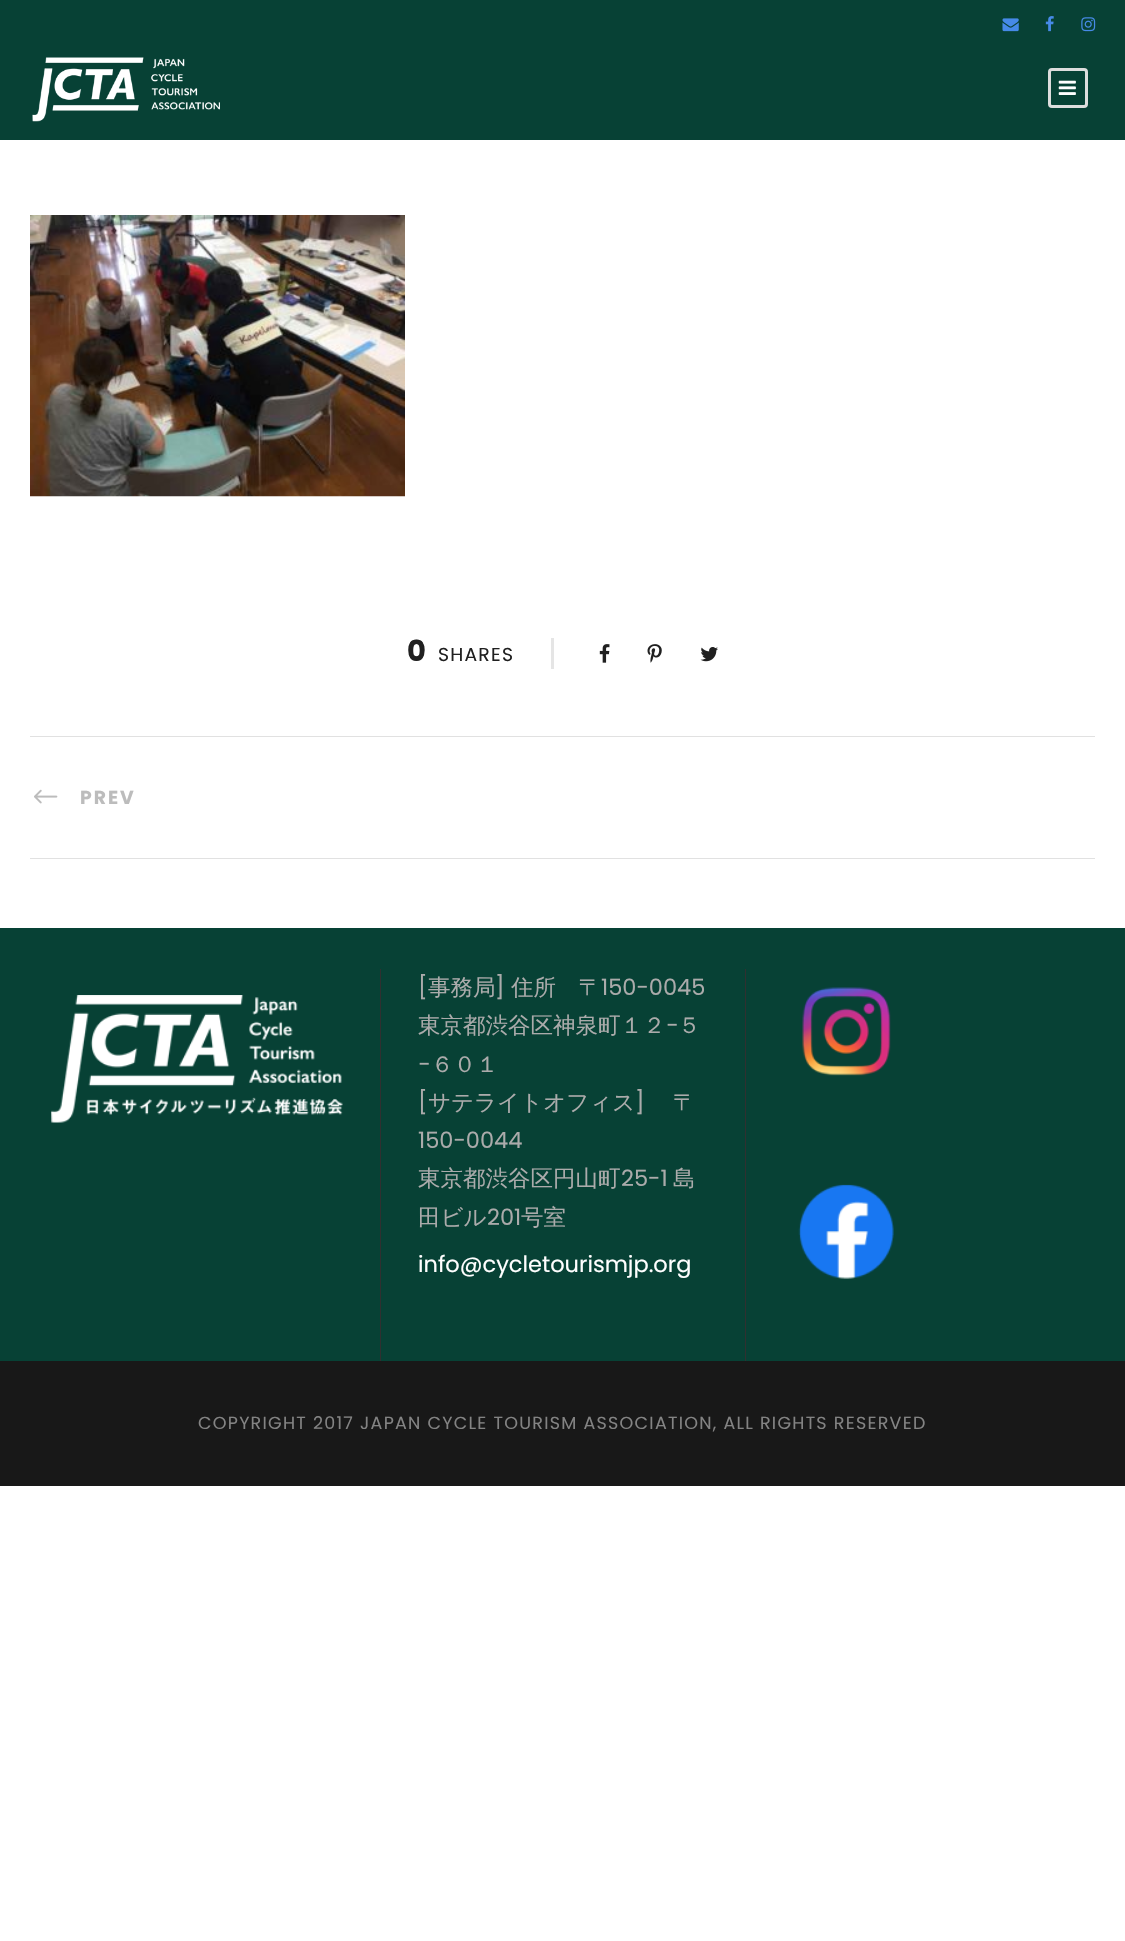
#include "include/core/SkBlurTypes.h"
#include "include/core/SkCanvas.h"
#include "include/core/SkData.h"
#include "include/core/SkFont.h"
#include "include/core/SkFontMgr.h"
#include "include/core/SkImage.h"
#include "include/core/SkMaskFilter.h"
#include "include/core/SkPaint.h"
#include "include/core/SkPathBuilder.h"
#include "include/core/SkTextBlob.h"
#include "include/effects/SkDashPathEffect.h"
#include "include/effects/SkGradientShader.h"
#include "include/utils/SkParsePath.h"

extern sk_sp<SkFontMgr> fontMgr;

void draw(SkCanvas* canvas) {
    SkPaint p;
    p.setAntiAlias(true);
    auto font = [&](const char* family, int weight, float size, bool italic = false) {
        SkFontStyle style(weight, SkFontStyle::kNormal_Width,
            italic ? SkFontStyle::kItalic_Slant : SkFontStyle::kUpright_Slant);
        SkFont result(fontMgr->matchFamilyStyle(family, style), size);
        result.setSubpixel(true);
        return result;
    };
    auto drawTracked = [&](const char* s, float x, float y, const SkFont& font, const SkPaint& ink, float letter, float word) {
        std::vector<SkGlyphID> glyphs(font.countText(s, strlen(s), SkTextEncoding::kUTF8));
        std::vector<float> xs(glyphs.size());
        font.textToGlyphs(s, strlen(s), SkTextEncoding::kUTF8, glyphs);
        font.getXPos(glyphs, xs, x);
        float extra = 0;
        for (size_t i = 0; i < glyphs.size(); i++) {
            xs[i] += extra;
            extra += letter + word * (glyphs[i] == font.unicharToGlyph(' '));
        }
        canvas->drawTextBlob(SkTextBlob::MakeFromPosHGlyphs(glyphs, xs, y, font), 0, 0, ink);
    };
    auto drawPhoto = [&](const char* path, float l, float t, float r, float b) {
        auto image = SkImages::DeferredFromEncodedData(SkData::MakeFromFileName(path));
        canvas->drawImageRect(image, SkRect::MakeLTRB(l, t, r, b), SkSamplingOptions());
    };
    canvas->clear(0xFFFFFFFF);
    p.setColor(0xFF074135);
    canvas->drawRect(SkRect::MakeLTRB(0, 0, 1125, 140), p);
    drawPhoto("media/1.png", 32, 57, 220, 122);
    p.setStyle(SkPaint::kStroke_Style);
    p.setStrokeWidth(3);
    p.setColor(0xFFDDDDDD);
    canvas->drawRoundRect(SkRect::MakeLTRB(1049.5f, 69.5f, 1086.5f, 106.5f), 2.5f, 2.5f, p);
    drawPhoto("media/2.png", 1058, 80, 1076, 95);
    drawPhoto("media/3.png", 1002, 18, 1019, 32);
    drawPhoto("media/4.png", 1045, 16, 1054, 32);
    drawPhoto("media/5.png", 1081, 17, 1096, 32);
    drawPhoto("media/6.png", 30, 215, 405, 497);
    auto font1 = font("Poppins", 700, 29);
    p.setStyle(SkPaint::kFill_Style);
    p.setColor(0xFF202020);
    canvas->drawString("0", 407, 661, font1, p);
    auto font2 = font("Poppins", 400, 18.75f);
    drawTracked("SHARES", 438, 661, font2, p, 1.25f, 0);
    p.setColor(0xFFE5E5E5);
    canvas->drawRect(SkRect::MakeLTRB(551, 638, 554, 669), p);
    drawPhoto("media/7.png", 599, 644, 610, 663);
    drawPhoto("media/8.png", 647, 644, 662, 663);
    drawPhoto("media/9.png", 700, 647, 718, 662);
    p.setColor(0xFFE1E1E1);
    canvas->drawRect(SkRect::MakeLTRB(30, 736, 1095, 737), p);
    canvas->drawRect(SkRect::MakeLTRB(30, 858, 1095, 859), p);
    drawPhoto("media/10.png", 34, 789, 58, 804);
    auto font3 = font("Poppins", 700, 18.75f);
    p.setColor(0xFFBCBCBC);
    drawTracked("PREV", 80, 804, font3, p, 2, 0);
    p.setColor(0xFF074135);
    canvas->drawRect(SkRect::MakeLTRB(0, 928, 1125, 1361), p);
    drawPhoto("media/11.png", 51, 995, 343, 1123);
    p.setColor(0xFF303030);
    canvas->drawRect(SkRect::MakeLTRB(380, 969, 381, 1361), p);
    auto font4 = font("Poppins", 400, 22.5f);
    p.setColor(0xFFABABAB);
    canvas->drawString("[", 418, 995, font4, p);
    auto font5 = font("WenQuanYi Zen Hei", 500, 22.5f);
    canvas->drawString("事務局", 428, 995, font5, p);
    canvas->drawString("]", 495, 995, font4, p);
    canvas->drawString("住所　〒", 511, 995, font5, p);
    canvas->drawString("150-0045", 601, 995, font4, p);
    canvas->drawString("東京都渋谷区神泉町１２", 418, 1033, font5, p);
    canvas->drawString("−", 666, 1033, font4, p);
    canvas->drawString("５", 678, 1033, font5, p);
    canvas->drawString("−", 418, 1072, font4, p);
    canvas->drawString("６０１", 431, 1072, font5, p);
    canvas->drawString("[", 418, 1110, font4, p);
    canvas->drawString("サテライトオフィス", 428, 1110, font5, p);
    canvas->drawString("]", 635, 1110, font4, p);
    canvas->drawString("〒", 673, 1110, font5, p);
    canvas->drawString("150-0044", 418, 1148, font4, p);
    canvas->drawString("東京都渋谷区円山町", 418, 1186, font5, p);
    canvas->drawString("25-1", 621, 1186, font4, p);
    canvas->drawString("島", 673, 1186, font5, p);
    canvas->drawString("田ビル", 418, 1225, font5, p);
    canvas->drawString("201", 487, 1225, font4, p);
    canvas->drawString("号室", 521, 1225, font5, p);
    p.setColor(0xFFFFFFFF);
    canvas->drawString("info@cycletourismjp.org", 418, 1272, font4, p);
    p.setColor(0xFF303030);
    canvas->drawRect(SkRect::MakeLTRB(745, 969, 746, 1361), p);
    drawPhoto("media/12.png", 802, 987, 891, 1076);
    drawPhoto("media/13.png", 798, 1184, 894, 1279);
    p.setColor(0xFF181818);
    canvas->drawRect(SkRect::MakeLTRB(0, 1361, 1125, 1486), p);
    auto font6 = font("Poppins", 400, 17.5f);
    p.setColor(0xFF838383);
    drawTracked("COPYRIGHT 2017 JAPAN CYCLE TOURISM ASSOCIATION, ALL RIGHTS RESERVED", 198, 1429, font6, p, 1.25f, 0);
}
